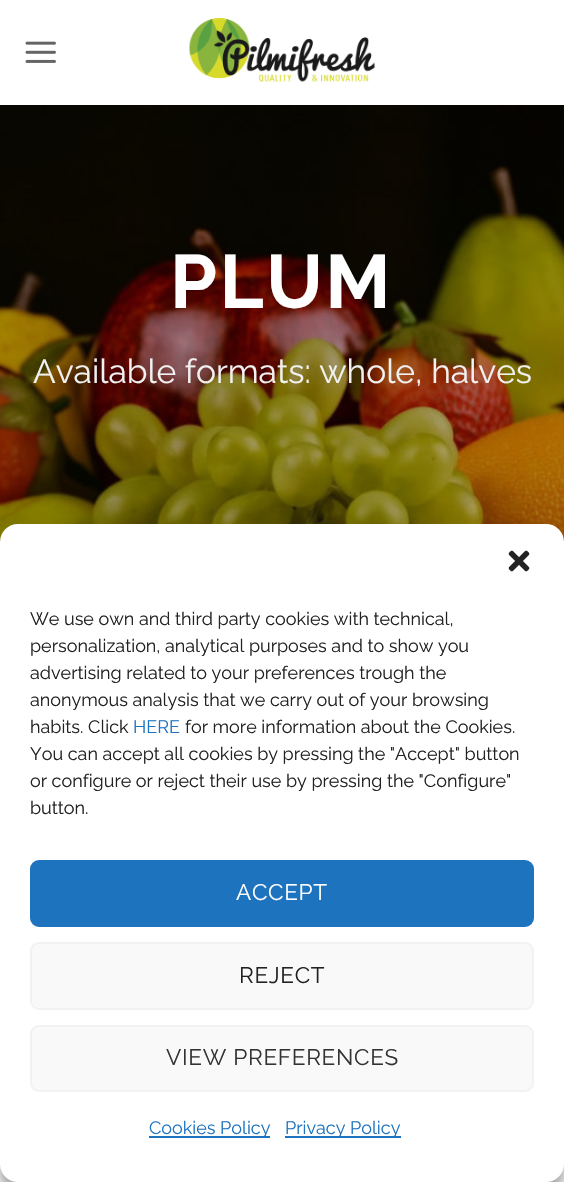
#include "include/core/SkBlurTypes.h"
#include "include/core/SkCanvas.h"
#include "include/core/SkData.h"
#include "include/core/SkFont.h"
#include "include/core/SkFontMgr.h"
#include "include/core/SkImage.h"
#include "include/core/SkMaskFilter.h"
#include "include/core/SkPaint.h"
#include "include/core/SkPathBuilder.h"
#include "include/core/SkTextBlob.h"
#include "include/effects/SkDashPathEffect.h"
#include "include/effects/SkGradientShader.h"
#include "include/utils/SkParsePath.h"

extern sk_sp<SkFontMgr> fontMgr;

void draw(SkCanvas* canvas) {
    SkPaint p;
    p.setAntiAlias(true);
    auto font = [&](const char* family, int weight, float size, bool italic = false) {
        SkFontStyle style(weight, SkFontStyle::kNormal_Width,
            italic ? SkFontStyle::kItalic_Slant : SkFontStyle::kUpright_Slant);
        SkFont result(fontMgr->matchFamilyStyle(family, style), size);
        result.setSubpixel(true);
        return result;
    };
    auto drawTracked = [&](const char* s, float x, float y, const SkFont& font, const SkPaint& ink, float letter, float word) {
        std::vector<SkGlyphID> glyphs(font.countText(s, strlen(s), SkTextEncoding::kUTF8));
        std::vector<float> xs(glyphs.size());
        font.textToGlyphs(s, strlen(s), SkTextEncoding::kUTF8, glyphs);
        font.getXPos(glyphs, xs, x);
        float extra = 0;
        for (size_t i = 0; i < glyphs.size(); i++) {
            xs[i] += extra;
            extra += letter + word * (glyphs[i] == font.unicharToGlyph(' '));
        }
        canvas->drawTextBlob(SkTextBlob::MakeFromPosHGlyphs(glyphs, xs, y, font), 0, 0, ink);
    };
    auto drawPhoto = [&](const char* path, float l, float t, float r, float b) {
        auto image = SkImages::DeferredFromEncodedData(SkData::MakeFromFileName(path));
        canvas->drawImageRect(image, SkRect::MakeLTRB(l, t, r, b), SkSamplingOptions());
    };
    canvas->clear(0xFFFFFFFF);
    drawPhoto("media/1.png", 25, 41, 56, 63);
    drawPhoto("media/2.png", 189, 17, 375, 82);
    drawPhoto("media/3.png", 0, 105, 564, 542);
    auto font1 = font("Raleway", 700, 75.5f);
    p.setColor(0xFFFFFFFF);
    drawTracked("PLUM", 170, 308, font1, p, 2.5f, 0);
    auto font2 = font("Raleway", 400, 33.6f);
    p.setColor(0xFFF1F1F1);
    canvas->drawString("Available formats: whole, halves", 33, 383, font2, p);
    p.setColor(0x3B000000);
    p.setMaskFilter(SkMaskFilter::MakeBlur(kNormal_SkBlurStyle, 4.5f));
    canvas->drawRoundRect(SkRect::MakeLTRB(0, 533, 564, 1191), 18, 18, p);
    p.setMaskFilter(nullptr);
    p.setColor(0x30000000);
    p.setMaskFilter(SkMaskFilter::MakeBlur(kNormal_SkBlurStyle, 15));
    canvas->drawRoundRect(SkRect::MakeLTRB(0, 539, 564, 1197), 18, 18, p);
    p.setMaskFilter(nullptr);
    p.setColor(0xFFFFFFFF);
    canvas->drawRoundRect(SkRect::MakeLTRB(0, 524, 564, 1182), 18, 18, p);
    drawPhoto("media/4.png", 508, 550, 530, 572);
    auto font3 = font("Raleway", 400, 18);
    p.setColor(0xFF222222);
    {
        const struct { const char* s; float x, y; } items[] = {
            {"We use own and third party cookies with technical,", 30, 625},
            {"personalization, analytical purposes and to show you", 30, 652},
            {"advertising related to your preferences trough the", 30, 679},
            {"anonymous analysis that we carry out of your browsing", 30, 706},
            {"habits. Click", 30, 733},
        };
        for (auto [s, x, y] : items) {
            canvas->drawString(s, x, y, font3, p);
        }
    }
    p.setColor(0xFF1E73BE);
    canvas->drawString("HERE", 133, 733, font3, p);
    p.setColor(0xFF222222);
    {
        const struct { const char* s; float x, y; } items[] = {
            {"for more information about the Cookies.", 185, 733},
            {"You can accept all cookies by pressing the \"Accept\" button", 30, 760},
            {"or configure or reject their use by pressing the \"Configure\"", 30, 787},
            {"button.", 30, 814},
        };
        for (auto [s, x, y] : items) {
            canvas->drawString(s, x, y, font3, p);
        }
    }
    p.setColor(0xFF1E73BE);
    canvas->drawRoundRect(SkRect::MakeLTRB(31, 861, 533, 926), 8, 8, p);
    p.setStyle(SkPaint::kStroke_Style);
    p.setStrokeWidth(2);
    canvas->drawRoundRect(SkRect::MakeLTRB(31, 861, 533, 926), 8, 8, p);
    auto font4 = font("Raleway", 400, 22.5f);
    p.setStyle(SkPaint::kFill_Style);
    p.setColor(0xFFFFFFFF);
    drawTracked("ACCEPT", 236, 900, font4, p, 0.7f, 0);
    p.setColor(0xFFF9F9F9);
    canvas->drawRoundRect(SkRect::MakeLTRB(31, 943, 533, 1009), 8, 8, p);
    p.setStyle(SkPaint::kStroke_Style);
    p.setColor(0xFFF2F2F2);
    canvas->drawRoundRect(SkRect::MakeLTRB(31, 943, 533, 1009), 8, 8, p);
    p.setStyle(SkPaint::kFill_Style);
    p.setColor(0xFF222222);
    drawTracked("REJECT", 239, 983, font4, p, 0.7f, 0);
    p.setColor(0xFFF9F9F9);
    canvas->drawRoundRect(SkRect::MakeLTRB(31, 1026, 533, 1091), 8, 8, p);
    p.setStyle(SkPaint::kStroke_Style);
    p.setColor(0xFFF2F2F2);
    canvas->drawRoundRect(SkRect::MakeLTRB(31, 1026, 533, 1091), 8, 8, p);
    p.setStyle(SkPaint::kFill_Style);
    p.setColor(0xFF333333);
    drawTracked("VIEW PREFERENCES", 166, 1065, font4, p, 0.7f, 0);
    p.setColor(0xFF1E73BE);
    canvas->drawRect(SkRect::MakeLTRB(149, 1136, 270, 1138), p);
    canvas->drawString("Cookies Policy", 149, 1134, font3, p);
    canvas->drawRect(SkRect::MakeLTRB(285, 1136, 401, 1138), p);
    canvas->drawString("Privacy Policy", 285, 1134, font3, p);
}
